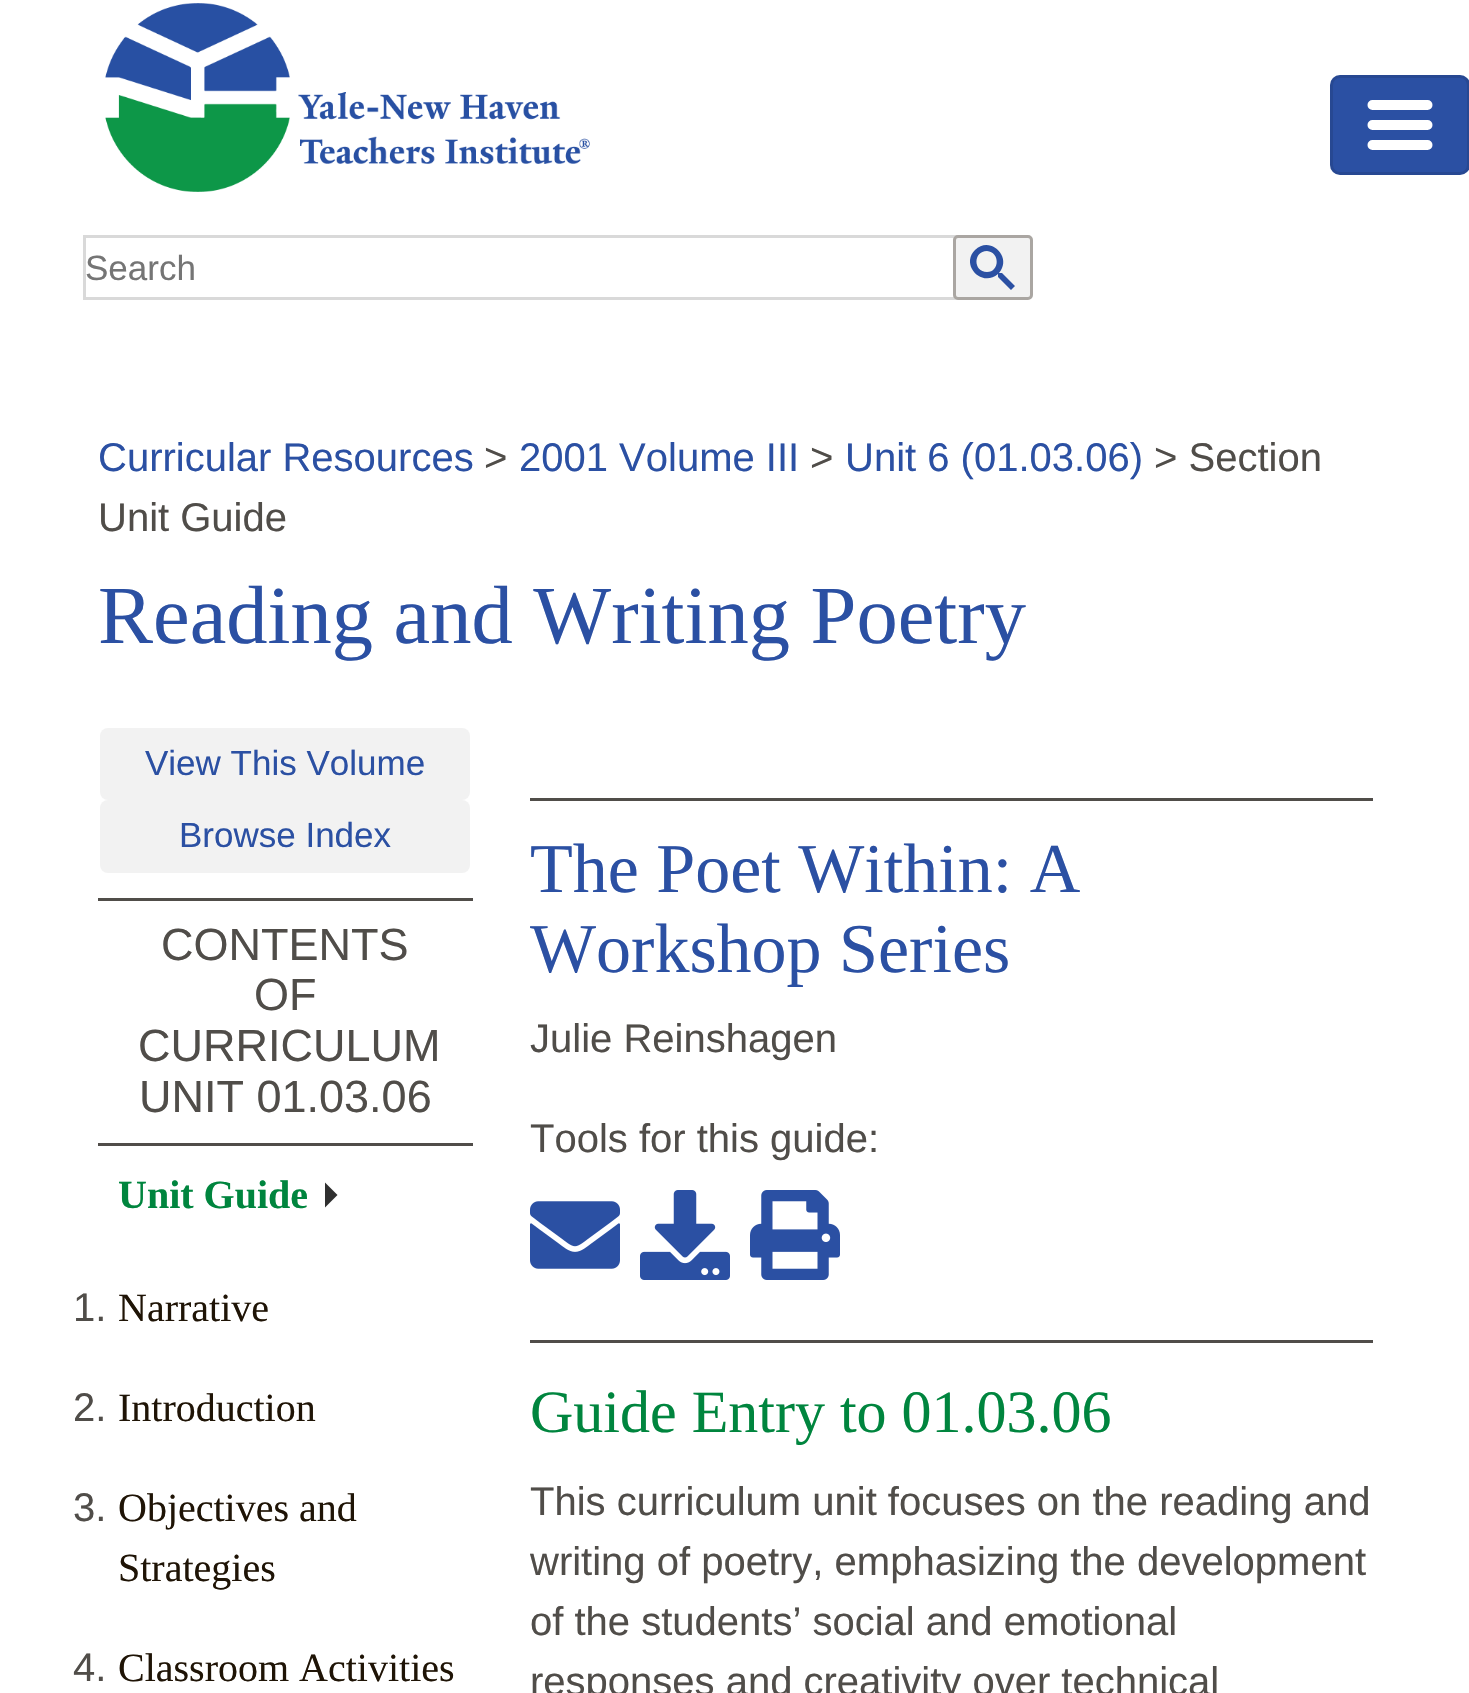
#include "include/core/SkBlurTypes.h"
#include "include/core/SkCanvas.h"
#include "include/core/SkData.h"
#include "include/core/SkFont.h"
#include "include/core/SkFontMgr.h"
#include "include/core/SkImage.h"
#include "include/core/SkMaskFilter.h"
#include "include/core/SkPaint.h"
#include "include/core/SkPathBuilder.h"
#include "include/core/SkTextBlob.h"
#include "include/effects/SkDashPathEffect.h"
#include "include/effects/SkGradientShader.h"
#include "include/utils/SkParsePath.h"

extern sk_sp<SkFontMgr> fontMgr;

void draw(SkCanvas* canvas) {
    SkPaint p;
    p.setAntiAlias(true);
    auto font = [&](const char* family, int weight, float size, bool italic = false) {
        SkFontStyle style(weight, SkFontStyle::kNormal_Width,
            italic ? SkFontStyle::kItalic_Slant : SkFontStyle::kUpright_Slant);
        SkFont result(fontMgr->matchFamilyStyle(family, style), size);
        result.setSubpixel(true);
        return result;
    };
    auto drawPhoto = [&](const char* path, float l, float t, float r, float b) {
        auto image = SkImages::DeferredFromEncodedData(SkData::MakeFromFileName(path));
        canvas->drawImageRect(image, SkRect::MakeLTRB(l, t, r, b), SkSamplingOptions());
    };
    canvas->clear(0xFFFFFFFF);
    p.setColor(0xFF2B50A3);
    canvas->drawRoundRect(SkRect::MakeLTRB(1330, 75, 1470, 175), 10, 10, p);
    p.setStyle(SkPaint::kStroke_Style);
    p.setStrokeWidth(3);
    p.setColor(0x1A000000);
    canvas->drawRoundRect(SkRect::MakeLTRB(1331.5f, 76.5f, 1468.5f, 173.5f), 8.5f, 8.5f, p);
    p.setStrokeWidth(10);
    p.setStrokeCap(SkPaint::kRound_Cap);
    p.setColor(0xFFFFFFFF);
    canvas->drawPath(SkPathBuilder().moveTo(1372.5f, 105).lineTo(1427.5f, 105).moveTo(1372.5f, 125).lineTo(1427.5f, 125).moveTo(1372.5f, 145).lineTo(1427.5f, 145).detach(), p);
    drawPhoto("media/1.png", 105, 3, 590, 192);
    p.setStrokeWidth(3);
    p.setStrokeCap(SkPaint::kButt_Cap);
    p.setColor(0xFFD9D9D9);
    canvas->drawRect(SkRect::MakeLTRB(84.5f, 236.5f, 956.5f, 298.5f), p);
    auto font1 = font("Liberation Sans", 400, 35);
    p.setStyle(SkPaint::kFill_Style);
    p.setColor(0xFF757575);
    canvas->drawString("Search", 85, 280, font1, p);
    p.setColor(0xFFF2F2F2);
    canvas->drawRoundRect(SkRect::MakeLTRB(954.5f, 236.5f, 1031.5f, 298.5f), 3.5f, 3.5f, p);
    p.setStyle(SkPaint::kStroke_Style);
    p.setColor(0xFFAAA6A2);
    canvas->drawRoundRect(SkRect::MakeLTRB(954.5f, 236.5f, 1031.5f, 298.5f), 3.5f, 3.5f, p);
    p.setStyle(SkPaint::kFill_Style);
    p.setColor(0xFF2B50A3);
    canvas->drawPath(SkPathBuilder().moveTo(987, 272).cubicTo(1000, 272, 1000, 252, 987, 251).cubicTo(973, 251, 973, 272, 987, 272).close().moveTo(1002, 273).lineTo(1015, 286).lineTo(1011, 290).lineTo(998, 277).lineTo(998, 274).cubicTo(982, 288, 960, 265, 975, 250).cubicTo(990, 235, 1013, 257, 999, 273).lineTo(1000, 273).close().detach(), p);
    auto font2 = font("Liberation Sans", 400, 40);
    canvas->drawString("Curricular Resources", 98, 471, font2, p);
    p.setColor(0xFF504D49);
    canvas->drawString(">", 484, 471, font2, p);
    p.setColor(0xFF2B50A3);
    canvas->drawString("2001 Volume III", 519, 471, font2, p);
    p.setColor(0xFF504D49);
    canvas->drawString(">", 810, 471, font2, p);
    p.setColor(0xFF2B50A3);
    canvas->drawString("Unit 6 (01.03.06)", 845, 471, font2, p);
    p.setColor(0xFF504D49);
    canvas->drawString("> Section", 1154, 471, font2, p);
    canvas->drawString("Unit Guide", 98, 531, font2, p);
    auto font3 = font("Liberation Serif", 400, 82.5f);
    p.setColor(0xFF2B50A3);
    canvas->drawString("Reading and Writing Poetry", 98, 643, font3, p);
    p.setColor(0xFFF2F2F2);
    canvas->drawRoundRect(SkRect::MakeLTRB(100, 728, 470, 800), 8, 8, p);
    p.setColor(0xFF2B50A3);
    canvas->drawString("View This Volume", 145, 775, font1, p);
    p.setColor(0xFFF2F2F2);
    canvas->drawRoundRect(SkRect::MakeLTRB(100, 800, 470, 873), 8, 8, p);
    p.setColor(0xFF2B50A3);
    canvas->drawString("Browse Index", 179, 847, font1, p);
    p.setColor(0xFF504D49);
    canvas->drawRect(SkRect::MakeLTRB(98, 898, 473, 901), p);
    canvas->drawRect(SkRect::MakeLTRB(98, 1143, 473, 1146), p);
    auto font4 = font("Liberation Sans", 400, 45);
    {
        const struct { const char* s; float x, y; } items[] = {
            {"CONTENTS", 161, 960},
            {"OF", 254, 1010},
            {"CURRICULUM", 138, 1061},
            {"UNIT 01.03.06", 139, 1112},
        };
        for (auto [s, x, y] : items) {
            canvas->drawString(s, x, y, font4, p);
        }
    }
    auto font5 = font("Liberation Serif", 700, 40);
    p.setColor(0xFF00853E);
    canvas->drawString("Unit Guide", 118, 1208, font5, p);
    p.setColor(0xFF2F2F2F);
    canvas->drawPath(SkPathBuilder().moveTo(325, 1207.5f).lineTo(325, 1182.5f).lineTo(337.5f, 1195).close().detach(), p);
    p.setColor(0xFF504D49);
    canvas->drawString("1.", 73, 1321, font2, p);
    auto font6 = font("Liberation Serif", 400, 40);
    p.setColor(0xFF1F1406);
    canvas->drawString("Narrative", 118, 1321, font6, p);
    p.setColor(0xFF504D49);
    canvas->drawString("2.", 73, 1421, font2, p);
    p.setColor(0xFF1F1406);
    canvas->drawString("Introduction", 118, 1421, font6, p);
    p.setColor(0xFF504D49);
    canvas->drawString("3.", 73, 1521, font2, p);
    p.setColor(0xFF1F1406);
    canvas->drawString("Objectives and", 118, 1521, font6, p);
    canvas->drawString("Strategies", 118, 1581, font6, p);
    p.setColor(0xFF504D49);
    canvas->drawString("4.", 73, 1681, font2, p);
    p.setColor(0xFF1F1406);
    canvas->drawString("Classroom Activities", 118, 1681, font6, p);
    p.setColor(0xFF504D49);
    canvas->drawRect(SkRect::MakeLTRB(530, 798, 1373, 801), p);
    auto font7 = font("Liberation Serif", 400, 70);
    p.setColor(0xFF2B50A3);
    canvas->drawString("The Poet Within: A", 530, 892, font7, p);
    canvas->drawString("Workshop Series", 530, 972, font7, p);
    p.setColor(0xFF504D49);
    canvas->drawString("Julie Reinshagen", 530, 1052, font2, p);
    canvas->drawString("Tools for this guide:", 530, 1152, font2, p);
    drawPhoto("media/2.png", 530, 1201, 620, 1269);
    drawPhoto("media/3.png", 640, 1190, 730, 1280);
    drawPhoto("media/4.png", 750, 1190, 840, 1280);
    canvas->drawRect(SkRect::MakeLTRB(530, 1340, 1373, 1343), p);
    auto font8 = font("Liberation Serif", 400, 60);
    p.setColor(0xFF00853E);
    canvas->drawString("Guide Entry to 01.03.06", 530, 1432, font8, p);
    p.setColor(0xFF504D49);
    {
        const struct { const char* s; float x, y; } items[] = {
            {"This curriculum unit focuses on the reading and", 530, 1515},
            {"writing of poetry, emphasizing the development", 530, 1575},
            {"of the students’ social and emotional", 530, 1635},
            {"responses and creativity over technical", 530, 1695},
        };
        for (auto [s, x, y] : items) {
            canvas->drawString(s, x, y, font2, p);
        }
    }
}
